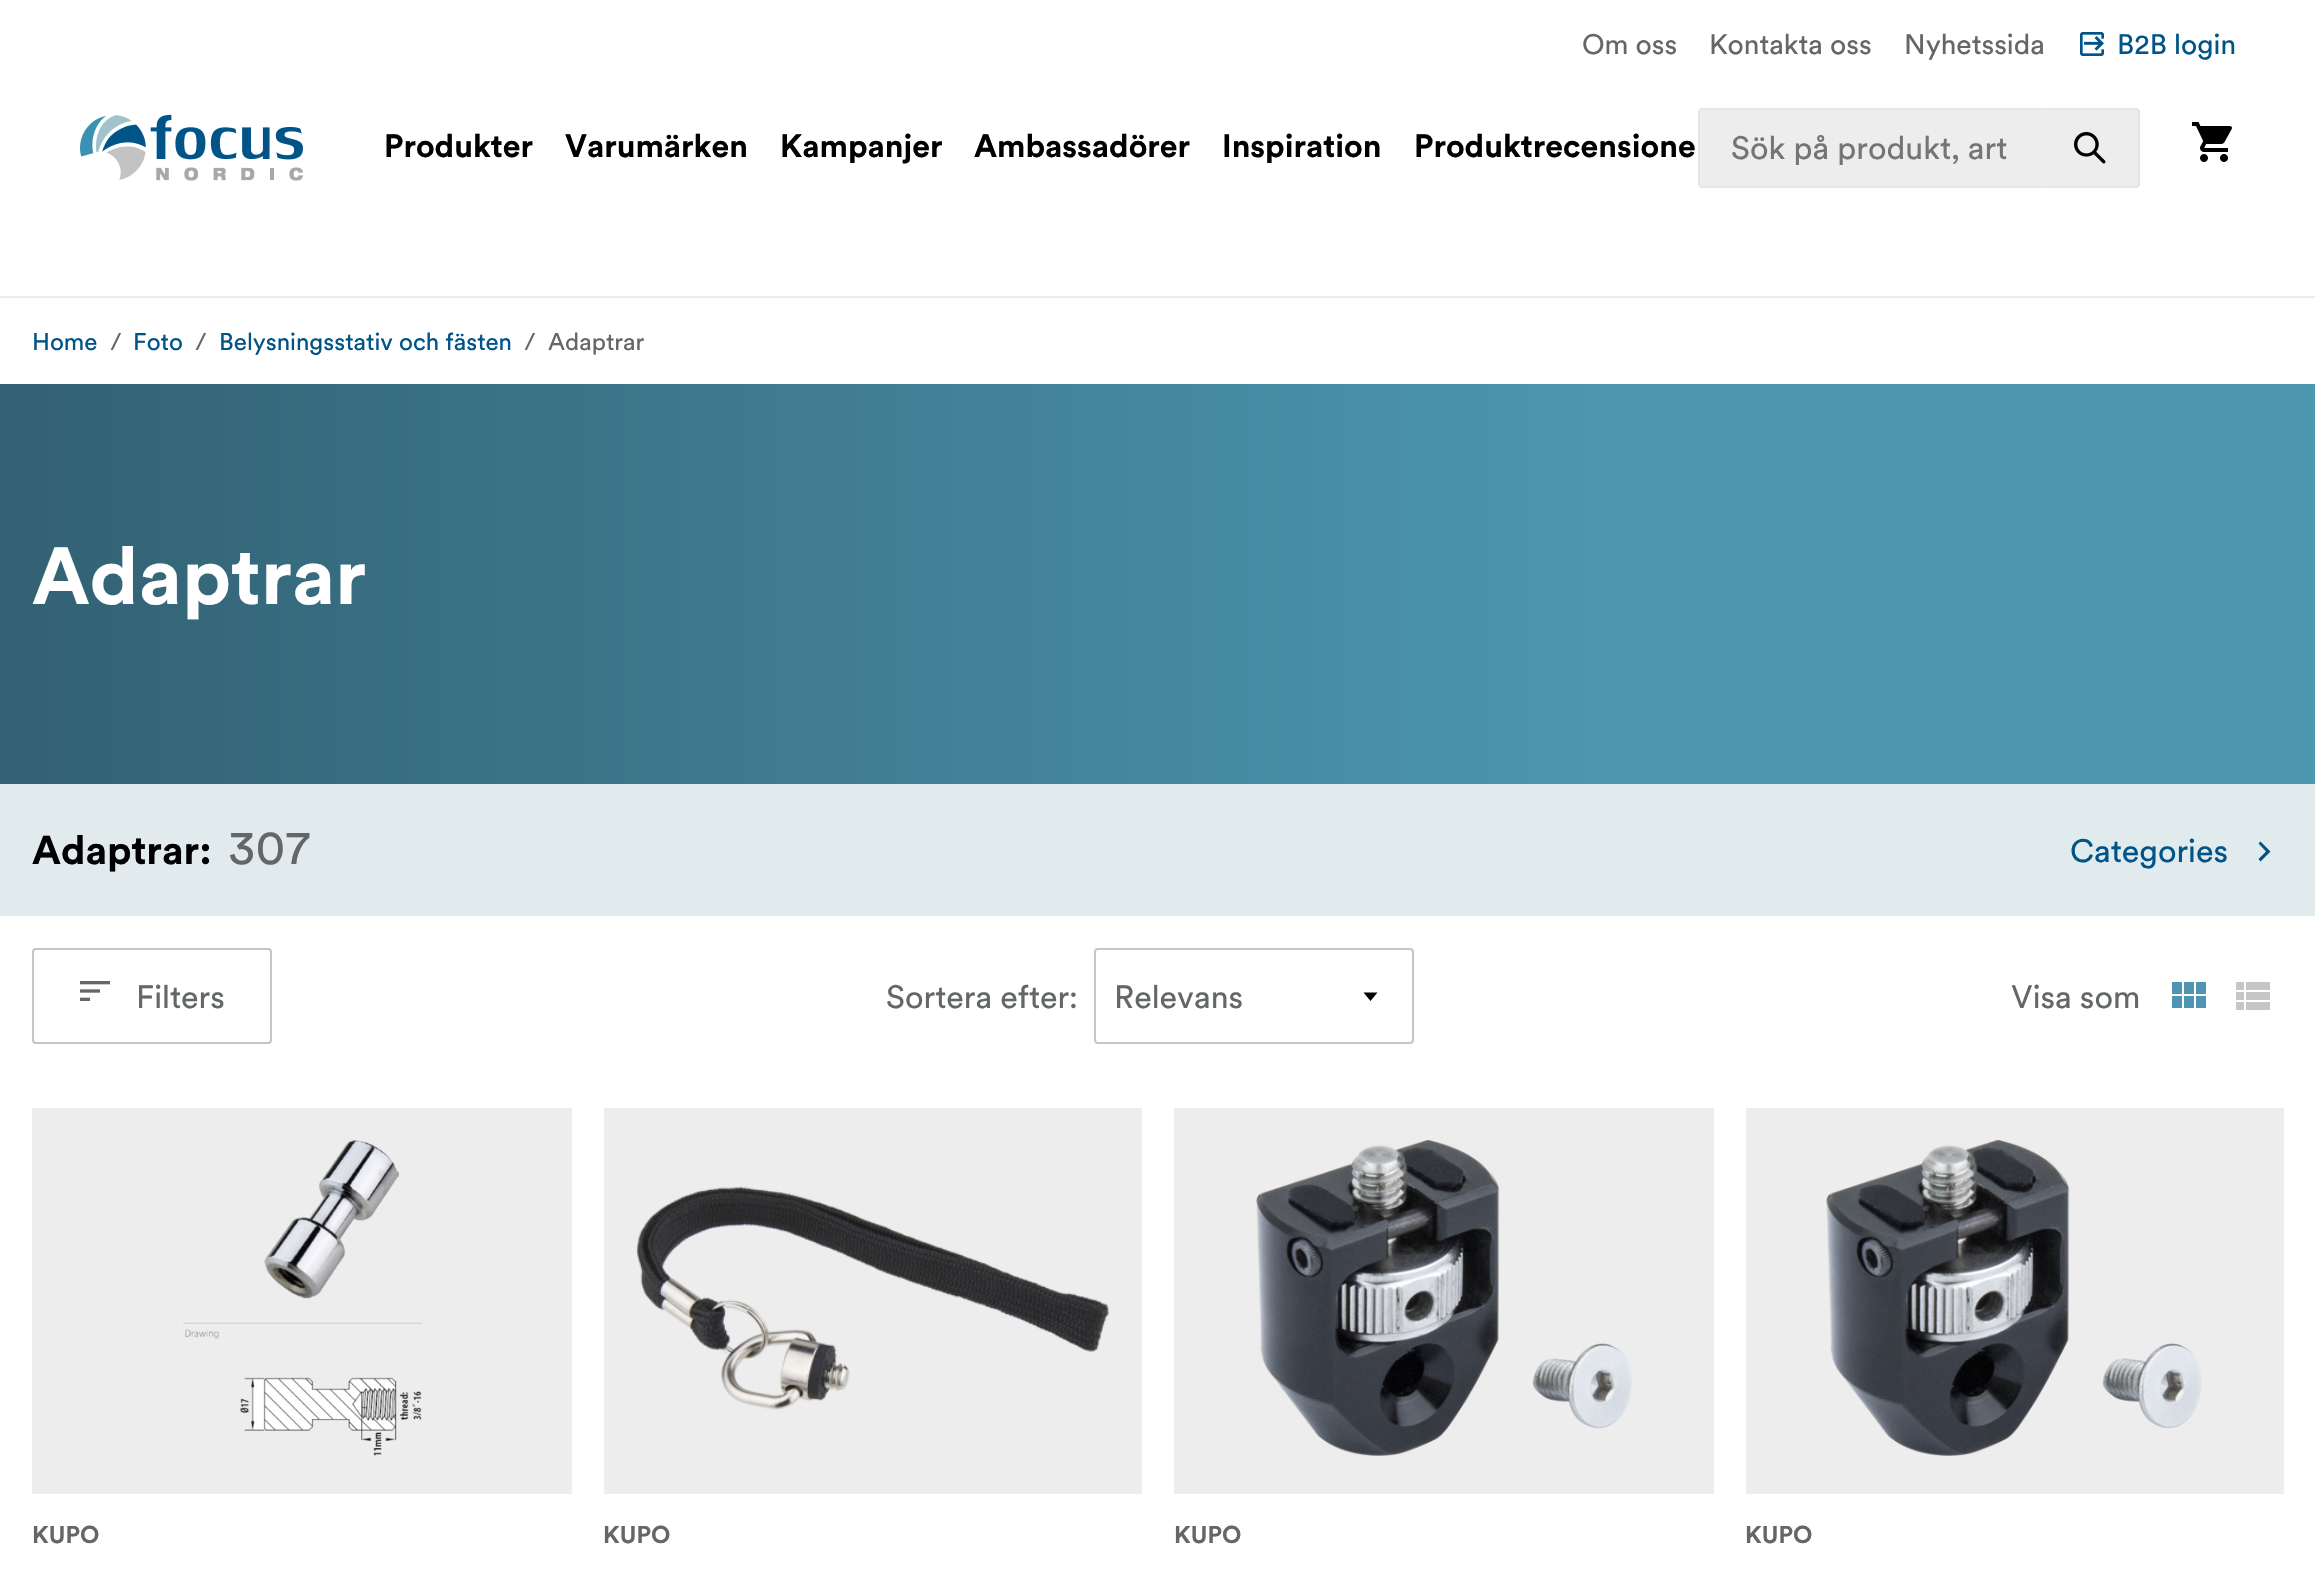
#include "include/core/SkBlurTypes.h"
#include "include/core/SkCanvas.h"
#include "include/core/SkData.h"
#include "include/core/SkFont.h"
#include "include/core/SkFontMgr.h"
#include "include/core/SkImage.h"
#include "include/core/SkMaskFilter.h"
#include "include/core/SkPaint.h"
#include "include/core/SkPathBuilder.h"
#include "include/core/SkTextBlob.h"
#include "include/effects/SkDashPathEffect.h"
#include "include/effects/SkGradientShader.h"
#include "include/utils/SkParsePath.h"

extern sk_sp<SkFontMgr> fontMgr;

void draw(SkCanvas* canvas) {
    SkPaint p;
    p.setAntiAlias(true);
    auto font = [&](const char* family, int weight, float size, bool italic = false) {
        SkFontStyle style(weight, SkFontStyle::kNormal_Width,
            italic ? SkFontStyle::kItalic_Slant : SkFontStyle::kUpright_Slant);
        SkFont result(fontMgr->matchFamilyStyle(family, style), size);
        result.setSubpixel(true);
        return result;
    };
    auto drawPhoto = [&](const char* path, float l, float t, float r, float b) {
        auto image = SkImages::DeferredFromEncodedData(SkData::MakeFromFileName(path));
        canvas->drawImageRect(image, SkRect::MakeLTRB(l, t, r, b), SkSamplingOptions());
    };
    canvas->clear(0xFFFFFFFF);
    auto font1 = font("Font", 400, 28);
    p.setColor(0xFF646768);
    {
        const struct { const char* s; float x, y; } items[] = {
            {"Om oss", 1582, 54},
            {"Kontakta oss", 1709, 54},
            {"Nyhetssida", 1904, 54},
        };
        for (auto [s, x, y] : items) {
            canvas->drawString(s, x, y, font1, p);
        }
    }
    drawPhoto("media/1.png", 2080, 32, 2104, 56);
    p.setColor(0xFF005488);
    canvas->drawString("B2B login", 2117, 54, font1, p);
    drawPhoto("media/2.png", 80, 114, 303, 181);
    auto font2 = font("Circular", 700, 32);
    p.setColor(0xFF000000);
    {
        const struct { const char* s; float x, y; } items[] = {
            {"Produkter", 384, 157},
            {"Varumärken", 565, 157},
            {"Kampanjer", 780, 157},
            {"Ambassadörer", 974, 157},
            {"Inspiration", 1222, 157},
            {"Produktrecensione", 1414, 157},
        };
        for (auto [s, x, y] : items) {
            canvas->drawString(s, x, y, font2, p);
        }
    }
    p.setColor(0xFFEDEDED);
    canvas->drawPath(SkPathBuilder().moveTo(1702, 108).lineTo(2040, 108).lineTo(2040, 188).lineTo(1702, 188).cubicTo(1700, 188, 1698, 186, 1698, 184).lineTo(1698, 112).cubicTo(1698, 110, 1700, 108, 1702, 108).close().detach(), p);
    {
        const struct { float l, t, r, b; SkColor color; } items[] = {
            {1700, 108, 2040, 110, 0xFFE5E5E5},
            {1700, 186, 2040, 188, 0xFFE5E5E5},
            {1698, 110, 1700, 186, 0xFFE5E5E5},
        };
        for (auto [l, t, r, b, color] : items) {
            p.setColor(color);
            canvas->drawRect(SkRect::MakeLTRB(l, t, r, b), p);
        }
    }
    auto font3 = font("Font", 400, 32);
    p.setColor(0xFF757575);
    canvas->drawString("Sök på produkt, art", 1731, 159, font3, p);
    p.setColor(0xFFEDEDED);
    canvas->drawPath(SkPathBuilder().moveTo(2040, 108).lineTo(2136, 108).cubicTo(2138, 108, 2140, 110, 2140, 112).lineTo(2140, 184).cubicTo(2140, 186, 2138, 188, 2136, 188).lineTo(2040, 188).close().detach(), p);
    p.setColor(0xFFE5E5E5);
    canvas->drawPath(SkPathBuilder().moveTo(2040, 108).lineTo(2042, 110).lineTo(2136, 110).lineTo(2137, 111).lineTo(2139, 109).lineTo(2136, 108).close().detach(), p);
    canvas->drawPath(SkPathBuilder().moveTo(2140, 184).lineTo(2140, 112).lineTo(2139, 109).lineTo(2137, 111).lineTo(2138, 112).lineTo(2138, 184).lineTo(2137, 185).lineTo(2139, 187).close().detach(), p);
    canvas->drawPath(SkPathBuilder().moveTo(2136, 188).lineTo(2139, 187).lineTo(2137, 185).lineTo(2136, 186).lineTo(2042, 186).lineTo(2040, 188).close().detach(), p);
    drawPhoto("media/3.png", 2074, 132, 2106, 164);
    drawPhoto("media/4.png", 2192, 122, 2232, 162);
    p.setColor(0xFFEDEDED);
    canvas->drawRect(SkRect::MakeLTRB(0, 296, 2315, 298), p);
    auto font4 = font("Font", 400, 24);
    p.setColor(0xFF005488);
    canvas->drawString("Home", 32, 350, font4, p);
    p.setColor(0xFF646768);
    canvas->drawString("/", 110, 350, font4, p);
    p.setColor(0xFF005488);
    canvas->drawString("Foto", 133, 350, font4, p);
    p.setColor(0xFF646768);
    canvas->drawString("/", 195, 350, font4, p);
    p.setColor(0xFF005488);
    canvas->drawString("Belysningsstativ och fästen", 219, 350, font4, p);
    p.setColor(0xFF646768);
    canvas->drawString("/", 524, 350, font4, p);
    canvas->drawString("Adaptrar", 548, 350, font4, p);
    {
        const SkColor colors[] = {0xFF326173, 0xFF4C96B0, 0xFF4C96B0};
        const float stops[] = {0, 0.69f, 1};
        const SkPoint ends[] = {{0, 584}, {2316, 584}};
        p.setShader(SkGradientShader::MakeLinear(ends, colors, stops, 3, SkTileMode::kClamp));
        p.setAlpha(255);
    }
    canvas->drawRect(SkRect::MakeLTRB(0, 384, 2315, 784), p);
    auto font5 = font("Circular", 700, 80);
    p.setShader(nullptr);
    p.setColor(0xFFFFFFFF);
    canvas->drawString("Adaptrar", 32, 604, font5, p);
    p.setColor(0xFFE1EAED);
    canvas->drawRect(SkRect::MakeLTRB(0, 784, 2315, 916), p);
    auto font6 = font("Circular", 700, 40);
    p.setColor(0xFF000000);
    canvas->drawString("Adaptrar:", 32, 864, font6, p);
    auto font7 = font("Font", 400, 48);
    p.setColor(0xFF646768);
    canvas->drawString("307", 228, 864, font7, p);
    p.setColor(0xFF005488);
    canvas->drawString("Categories", 2070, 862, font3, p);
    canvas->drawPath(SkPathBuilder().moveTo(2258.5f, 859).lineTo(2266, 851.5f).lineTo(2258.5f, 843.5f).lineTo(2260.5f, 841.5f).lineTo(2270.5f, 851.5f).lineTo(2260.5f, 861.5f).close().detach(), p);
    p.setStyle(SkPaint::kStroke_Style);
    p.setStrokeWidth(2);
    p.setColor(0xFFC6C6C6);
    canvas->drawRoundRect(SkRect::MakeLTRB(33, 949, 271, 1043), 3, 3, p);
    drawPhoto("media/5.png", 80, 981, 110, 1001);
    p.setStyle(SkPaint::kFill_Style);
    p.setColor(0xFF646768);
    canvas->drawString("Filters", 136, 1008, font3, p);
    canvas->drawString("Sortera efter:", 886, 1008, font3, p);
    p.setStyle(SkPaint::kStroke_Style);
    p.setColor(0xFFC6C6C6);
    canvas->drawRoundRect(SkRect::MakeLTRB(1095, 949, 1413, 1043), 3, 3, p);
    p.setStyle(SkPaint::kFill_Style);
    p.setColor(0xFF646768);
    canvas->drawString("Relevans", 1114, 1008, font3, p);
    p.setColor(0xFF000000);
    canvas->drawPath(SkPathBuilder().moveTo(1363.5f, 992.5f).lineTo(1370.5f, 1001).lineTo(1377.5f, 992.5f).close().detach(), p);
    p.setColor(0xFF646768);
    canvas->drawString("Visa som", 2011, 1008, font3, p);
    drawPhoto("media/6.png", 2172, 982, 2206, 1008);
    drawPhoto("media/7.png", 2236, 982, 2270, 1010);
    p.setColor(0xFFEDEDED);
    canvas->drawRect(SkRect::MakeLTRB(32, 1108, 572, 1494), p);
    drawPhoto("media/8.png", 183, 1140, 422, 1456);
    auto font8 = font("Circular", 700, 24);
    p.setColor(0xFF646768);
    canvas->drawString("KUPO", 32, 1543, font8, p);
    p.setColor(0xFFEDEDED);
    canvas->drawRect(SkRect::MakeLTRB(604, 1108, 1142, 1494), p);
    drawPhoto("media/9.png", 636, 1186, 1109, 1410);
    p.setColor(0xFF646768);
    canvas->drawString("KUPO", 603, 1543, font8, p);
    p.setColor(0xFFEDEDED);
    canvas->drawRect(SkRect::MakeLTRB(1174, 1108, 1714, 1494), p);
    drawPhoto("media/10.png", 1256, 1140, 1632, 1456);
    p.setColor(0xFF646768);
    canvas->drawString("KUPO", 1174, 1543, font8, p);
    p.setColor(0xFFEDEDED);
    canvas->drawRect(SkRect::MakeLTRB(1746, 1108, 2284, 1494), p);
    drawPhoto("media/11.png", 1826, 1140, 2202, 1456);
    p.setColor(0xFF646768);
    canvas->drawString("KUPO", 1745, 1543, font8, p);
}
